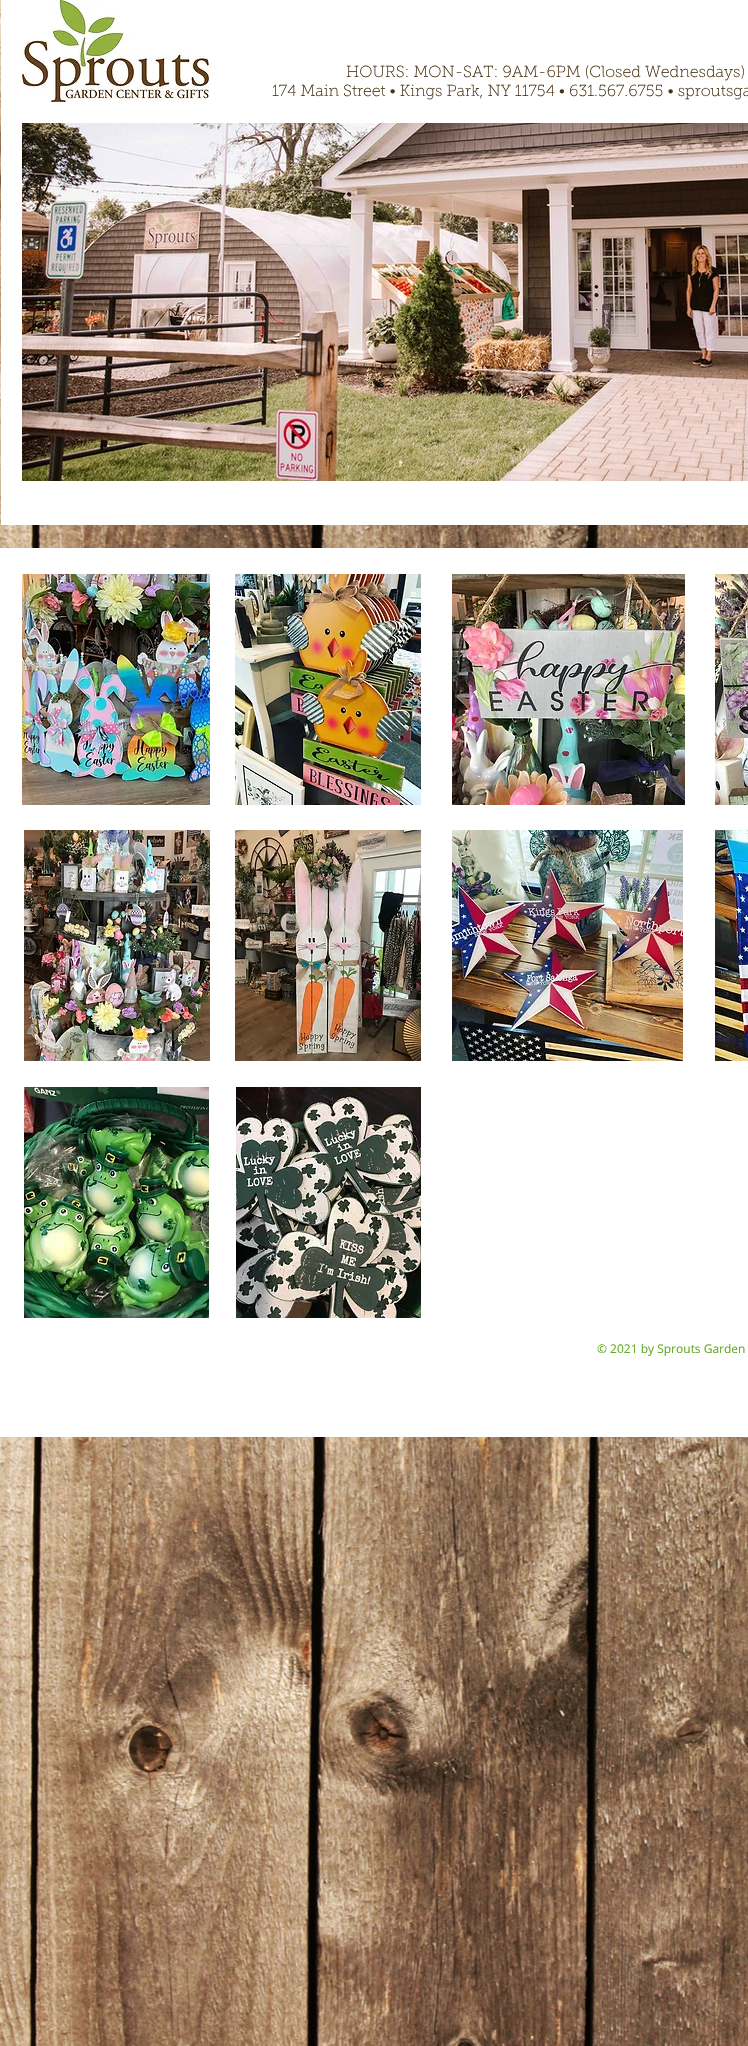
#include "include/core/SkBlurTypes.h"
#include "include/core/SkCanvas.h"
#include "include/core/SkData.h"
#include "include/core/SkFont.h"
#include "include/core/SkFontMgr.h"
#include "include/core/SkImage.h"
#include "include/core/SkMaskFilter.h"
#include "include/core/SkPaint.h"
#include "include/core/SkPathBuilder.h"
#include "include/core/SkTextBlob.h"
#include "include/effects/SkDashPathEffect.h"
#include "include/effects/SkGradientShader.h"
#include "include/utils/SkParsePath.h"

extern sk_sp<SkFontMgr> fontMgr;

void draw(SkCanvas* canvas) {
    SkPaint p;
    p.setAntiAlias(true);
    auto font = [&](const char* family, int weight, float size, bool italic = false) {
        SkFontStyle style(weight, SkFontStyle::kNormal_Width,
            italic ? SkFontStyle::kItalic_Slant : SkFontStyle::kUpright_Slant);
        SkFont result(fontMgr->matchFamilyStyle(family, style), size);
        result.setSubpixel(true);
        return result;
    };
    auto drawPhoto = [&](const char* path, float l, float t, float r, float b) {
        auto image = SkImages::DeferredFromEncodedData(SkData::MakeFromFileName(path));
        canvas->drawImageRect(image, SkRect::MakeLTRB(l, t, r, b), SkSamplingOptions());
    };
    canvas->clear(0xFFFFFFFF);
    drawPhoto("media/1.png", 0, 0, 748, 2046);
    p.setColor(0xFFFFFFFF);
    canvas->drawRect(SkRect::MakeLTRB(1, 0, 748, 525), p);
    drawPhoto("media/2.png", 22, 0, 209, 102);
    auto font1 = font("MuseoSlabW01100", 100, 16);
    p.setColor(0xFF493414);
    canvas->drawString("HOURS: MON-SAT: 9AM-6PM (Closed Wednesdays)", 346, 77, font1, p);
    canvas->drawString("174 Main Street • Kings Park, NY 11754 • 631.567.6755 • sproutsga", 272, 96, font1, p);
    drawPhoto("media/3.png", 22, 123, 748, 481);
    p.setColor(0xFFFFFFFF);
    canvas->drawRect(SkRect::MakeLTRB(0, 548, 748, 1437), p);
    drawPhoto("media/4.png", 22, 574, 210, 805);
    drawPhoto("media/5.png", 235, 574, 421, 805);
    drawPhoto("media/6.png", 452, 574, 685, 805);
    drawPhoto("media/7.png", 715, 574, 748, 805);
    drawPhoto("media/8.png", 24, 830, 210, 1061);
    drawPhoto("media/9.png", 235, 830, 421, 1061);
    drawPhoto("media/10.png", 452, 830, 683, 1061);
    drawPhoto("media/11.png", 715, 830, 748, 1061);
    drawPhoto("media/12.png", 24, 1087, 209, 1318);
    drawPhoto("media/13.png", 236, 1087, 421, 1318);
    auto font2 = font("Open Sans", 400, 12);
    p.setColor(0xFF65AB24);
    canvas->drawString("© 2021 by Sprouts Garden", 597, 1353, font2, p);
}
